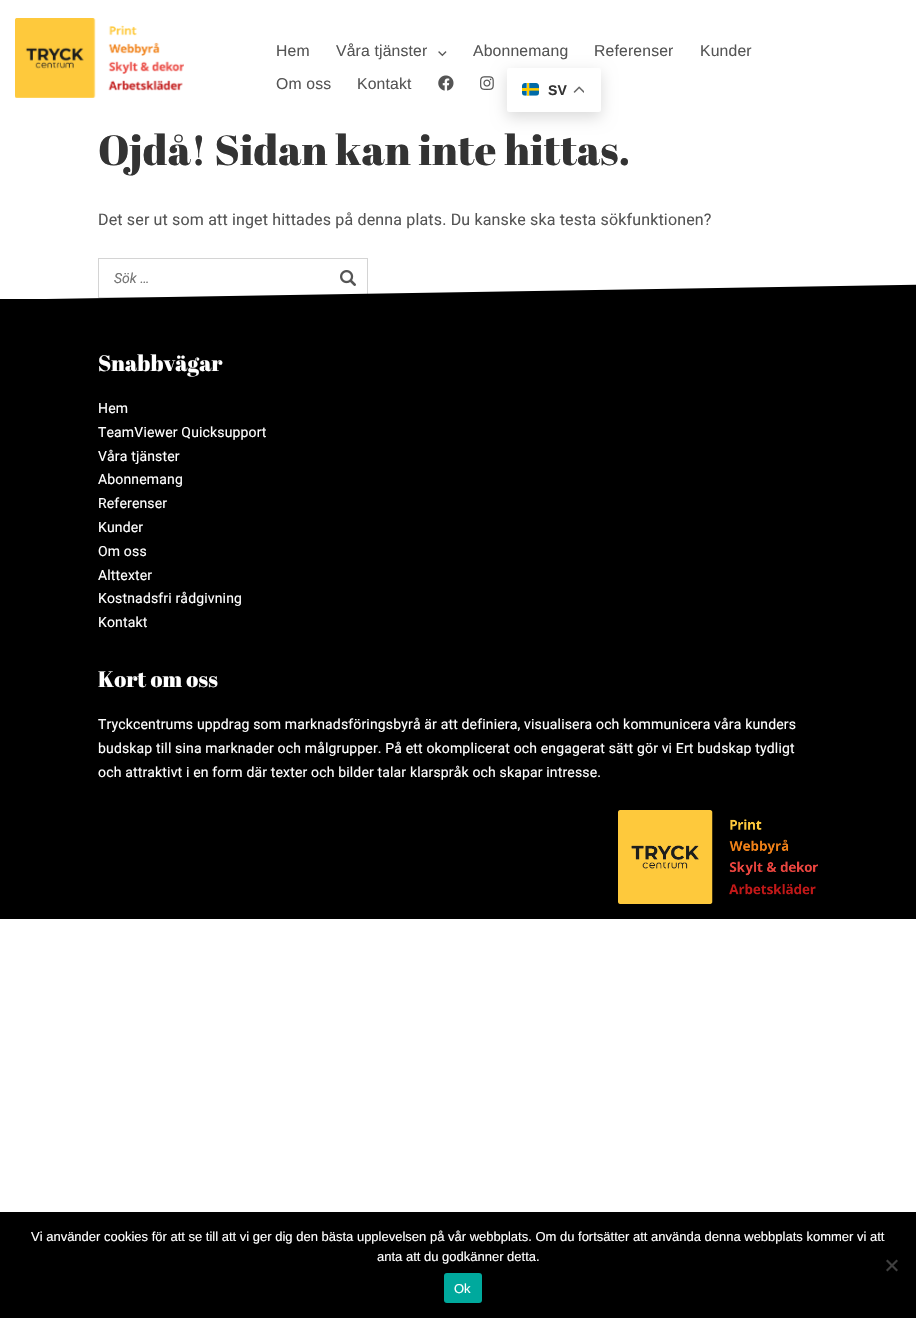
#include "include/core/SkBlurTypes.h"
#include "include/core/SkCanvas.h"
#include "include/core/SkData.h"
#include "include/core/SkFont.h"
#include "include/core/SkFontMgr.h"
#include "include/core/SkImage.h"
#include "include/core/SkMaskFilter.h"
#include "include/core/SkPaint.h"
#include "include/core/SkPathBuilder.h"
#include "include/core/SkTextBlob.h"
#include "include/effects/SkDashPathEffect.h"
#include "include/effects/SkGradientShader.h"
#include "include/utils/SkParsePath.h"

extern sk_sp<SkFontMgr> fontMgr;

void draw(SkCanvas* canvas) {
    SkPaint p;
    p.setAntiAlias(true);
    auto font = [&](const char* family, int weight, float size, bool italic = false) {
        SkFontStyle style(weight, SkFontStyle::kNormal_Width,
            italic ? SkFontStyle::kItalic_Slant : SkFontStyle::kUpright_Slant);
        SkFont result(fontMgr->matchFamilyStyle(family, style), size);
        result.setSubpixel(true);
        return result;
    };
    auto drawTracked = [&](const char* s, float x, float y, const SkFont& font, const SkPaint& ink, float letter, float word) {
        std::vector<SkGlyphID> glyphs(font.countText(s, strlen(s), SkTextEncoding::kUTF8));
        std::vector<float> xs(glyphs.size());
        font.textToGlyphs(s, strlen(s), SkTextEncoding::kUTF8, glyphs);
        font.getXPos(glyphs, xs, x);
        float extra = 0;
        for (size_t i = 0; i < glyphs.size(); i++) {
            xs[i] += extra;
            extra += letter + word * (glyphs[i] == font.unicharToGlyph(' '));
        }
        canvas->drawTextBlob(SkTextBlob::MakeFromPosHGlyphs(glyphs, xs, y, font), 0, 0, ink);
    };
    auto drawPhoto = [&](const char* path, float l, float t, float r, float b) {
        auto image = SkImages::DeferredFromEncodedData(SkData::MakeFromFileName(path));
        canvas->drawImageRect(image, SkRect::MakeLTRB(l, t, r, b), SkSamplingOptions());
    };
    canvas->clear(0xFFFFFFFF);
    drawPhoto("media/1.png", 15, 18, 184, 98);
    auto font1 = font("Liberation Sans", 400, 15.75f);
    p.setColor(0xFF555555);
    drawTracked("Hem", 276, 56, font1, p, 0.16f, 0);
    drawTracked("Våra tjänster", 336, 56, font1, p, 0.16f, 0);
    drawPhoto("media/2.png", 438, 51, 447, 57);
    {
        const struct { const char* s; float x, y; } items[] = {
            {"Abonnemang", 473, 56},
            {"Referenser", 594, 56},
            {"Kunder", 700, 56},
            {"Om oss", 276, 89},
            {"Kontakt", 357, 89},
        };
        for (auto [s, x, y] : items) {
            drawTracked(s, x, y, font1, p, 0.16f, 0);
        }
    }
    drawPhoto("media/3.png", 438, 75, 454, 91);
    drawPhoto("media/4.png", 480, 76, 494, 90);
    p.setColor(0x26000000);
    p.setMaskFilter(SkMaskFilter::MakeBlur(kNormal_SkBlurStyle, 7.5f));
    canvas->drawRoundRect(SkRect::MakeLTRB(507, 73, 601, 117), 2, 2, p);
    p.setMaskFilter(nullptr);
    p.setColor(0xFFFFFFFF);
    canvas->drawRoundRect(SkRect::MakeLTRB(507, 68, 601, 112), 2, 2, p);
    drawPhoto("media/5.png", 522, 83, 539, 96);
    auto font2 = font("Liberation Sans", 700, 14);
    p.setColor(0xFF333333);
    drawTracked("SV", 548, 95, font2, p, 0.16f, 0);
    drawPhoto("media/6.png", 573, 86, 584, 93);
    auto font3 = font("Abril Fatface", 400, 42);
    drawTracked("Ojdå! Sidan kan inte hittas.", 98, 165, font3, p, 0.16f, 0);
    auto font4 = font("Roboto", 400, 16);
    p.setColor(0xFF555555);
    drawTracked("Det ser ut som att inget hittades på denna plats. Du kanske ska testa sökfunktionen?", 98, 225, font4, p, 0.16f, 0);
    p.setStyle(SkPaint::kStroke_Style);
    p.setStrokeWidth(1);
    p.setColor(0xFFD4D4D4);
    canvas->drawRect(SkRect::MakeLTRB(98.5f, 258.5f, 367.5f, 297.5f), p);
    auto font5 = font("Roboto", 400, 14, true);
    p.setStyle(SkPaint::kFill_Style);
    p.setColor(0xFF757575);
    canvas->drawString("Sök …", 114, 283, font5, p);
    p.setColor(0xFF000000);
    canvas->drawRect(SkRect::MakeLTRB(0, 299, 916, 919), p);
    canvas->drawPath(SkPathBuilder().moveTo(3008, 250).lineTo(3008, 303).lineTo(-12, 300).close().detach(), p);
    drawPhoto("media/7.png", 340, 270, 356, 286);
    auto font6 = font("Abril Fatface", 400, 22);
    p.setColor(0xFFFFFFFF);
    drawTracked("Snabbvägar", 98, 371, font6, p, 0.16f, 0);
    auto font7 = font("Roboto", 400, 14);
    {
        const struct { const char* s; float x, y; } items[] = {
            {"Hem", 98, 413},
            {"TeamViewer Quicksupport", 98, 437},
            {"Våra tjänster", 98, 461},
            {"Abonnemang", 98, 484},
            {"Referenser", 98, 508},
            {"Kunder", 98, 532},
            {"Om oss", 98, 556},
            {"Alttexter", 98, 580},
            {"Kostnadsfri rådgivning", 98, 603},
            {"Kontakt", 98, 627},
        };
        for (auto [s, x, y] : items) {
            drawTracked(s, x, y, font7, p, 0.16f, 0);
        }
    }
    drawTracked("Kort om oss", 98, 687, font6, p, 0.16f, 0);
    {
        const struct { const char* s; float x, y; } items[] = {
            {"Tryckcentrums uppdrag som marknadsföringsbyrå är att definiera, visualisera och kommunicera våra kunders", 98, 729},
            {"budskap till sina marknader och målgrupper. På ett okomplicerat och engagerat sätt gör vi Ert budskap tydligt", 98, 753},
            {"och attraktivt i en form där texter och bilder talar klarspråk och skapar intresse.", 98, 777},
        };
        for (auto [s, x, y] : items) {
            drawTracked(s, x, y, font7, p, 0.16f, 0);
        }
    }
    drawPhoto("media/8.png", 618, 810, 818, 904);
    p.setColor(0xFF000000);
    canvas->drawRect(SkRect::MakeLTRB(0, 1212, 916, 1318), p);
    auto font8 = font("Liberation Sans", 400, 13);
    p.setColor(0xFFFFFFFF);
    canvas->drawString("Vi använder cookies för att se till att vi ger dig den bästa upplevelsen på vår webbplats. Om du fortsätter att använda denna webbplats kommer vi att", 31, 1241, font8, p);
    canvas->drawString("anta att du godkänner detta.", 377, 1261, font8, p);
    p.setColor(0xFF404040);
    canvas->drawPath(SkPathBuilder().moveTo(896.5f, 1259.5f).lineTo(898, 1261).lineTo(887.5f, 1271.5f).lineTo(886, 1270).close().detach(), p);
    canvas->drawPath(SkPathBuilder().moveTo(886, 1261).lineTo(887.5f, 1259.5f).lineTo(898, 1270).lineTo(896.5f, 1271.5f).close().detach(), p);
    p.setColor(0xFF00A99D);
    canvas->drawRoundRect(SkRect::MakeLTRB(444, 1273, 482, 1303), 3, 3, p);
    p.setColor(0xFFFFFFFF);
    canvas->drawString("Ok", 454, 1293, font8, p);
}
